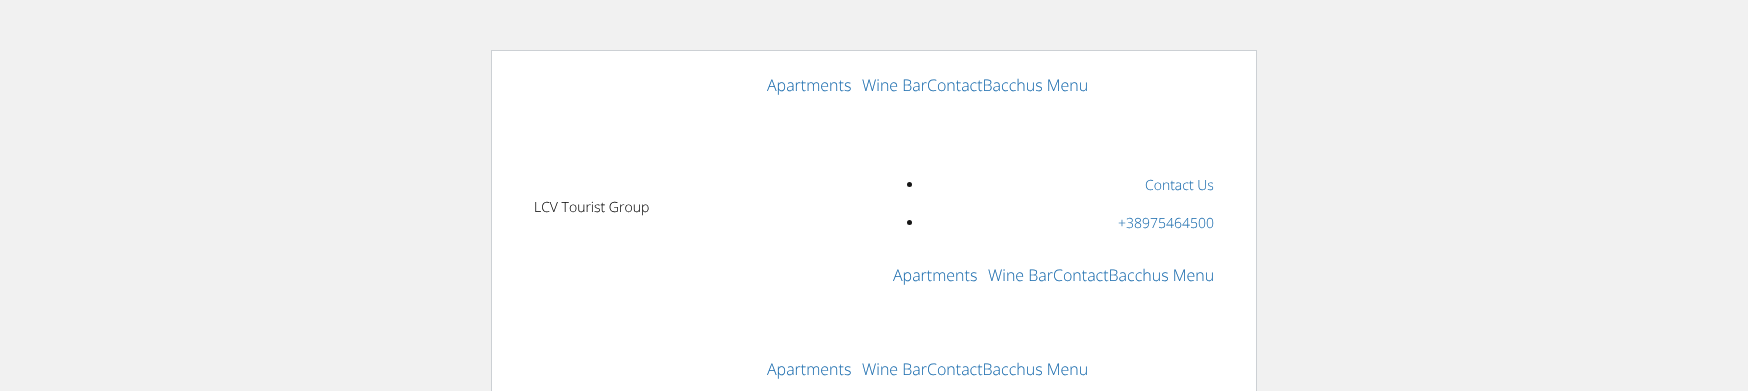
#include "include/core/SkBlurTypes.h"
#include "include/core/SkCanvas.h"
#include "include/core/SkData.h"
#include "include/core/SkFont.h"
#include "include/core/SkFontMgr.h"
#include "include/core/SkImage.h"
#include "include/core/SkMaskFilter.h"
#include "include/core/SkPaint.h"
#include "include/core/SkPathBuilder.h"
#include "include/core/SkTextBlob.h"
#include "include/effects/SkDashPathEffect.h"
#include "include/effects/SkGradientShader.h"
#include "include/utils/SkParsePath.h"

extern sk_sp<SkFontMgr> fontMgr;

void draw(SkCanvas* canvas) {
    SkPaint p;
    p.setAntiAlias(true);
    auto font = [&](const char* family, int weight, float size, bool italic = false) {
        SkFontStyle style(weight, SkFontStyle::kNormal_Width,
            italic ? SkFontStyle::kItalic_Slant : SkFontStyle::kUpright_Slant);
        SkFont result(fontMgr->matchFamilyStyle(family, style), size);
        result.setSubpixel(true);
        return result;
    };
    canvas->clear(0xFFF1F1F1);
    p.setColor(0xFFFFFFFF);
    canvas->drawRect(SkRect::MakeLTRB(491.5f, 50.5f, 1256.5f, 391.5f), p);
    p.setStyle(SkPaint::kStroke_Style);
    p.setStrokeWidth(1);
    p.setColor(0xFFCCD0D4);
    canvas->drawRect(SkRect::MakeLTRB(491.5f, 50.5f, 1256.5f, 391.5f), p);
    auto font1 = font("Open Sans", 300, 16);
    p.setStyle(SkPaint::kFill_Style);
    p.setColor(0xFF2271B1);
    canvas->drawString("Apartments", 767, 91, font1, p);
    canvas->drawString("Wine BarContactBacchus Menu", 862, 91, font1, p);
    auto font2 = font("Open Sans", 300, 14);
    p.setColor(0xFF151515);
    canvas->drawString("LCV Tourist Group", 534, 212, font2, p);
    canvas->drawCircle(909.5f, 184.5f, 2.5f, p);
    p.setColor(0xFF2271B1);
    canvas->drawString("Contact Us", 1145, 190, font2, p);
    p.setColor(0xFF151515);
    canvas->drawCircle(909.5f, 222.5f, 2.5f, p);
    p.setColor(0xFF2271B1);
    canvas->drawString("+38975464500", 1118, 228, font2, p);
    {
        const struct { const char* s; float x, y; } items[] = {
            {"Apartments", 893, 281},
            {"Wine BarContactBacchus Menu", 988, 281},
            {"Apartments", 767, 375},
            {"Wine BarContactBacchus Menu", 862, 375},
        };
        for (auto [s, x, y] : items) {
            canvas->drawString(s, x, y, font1, p);
        }
    }
}
